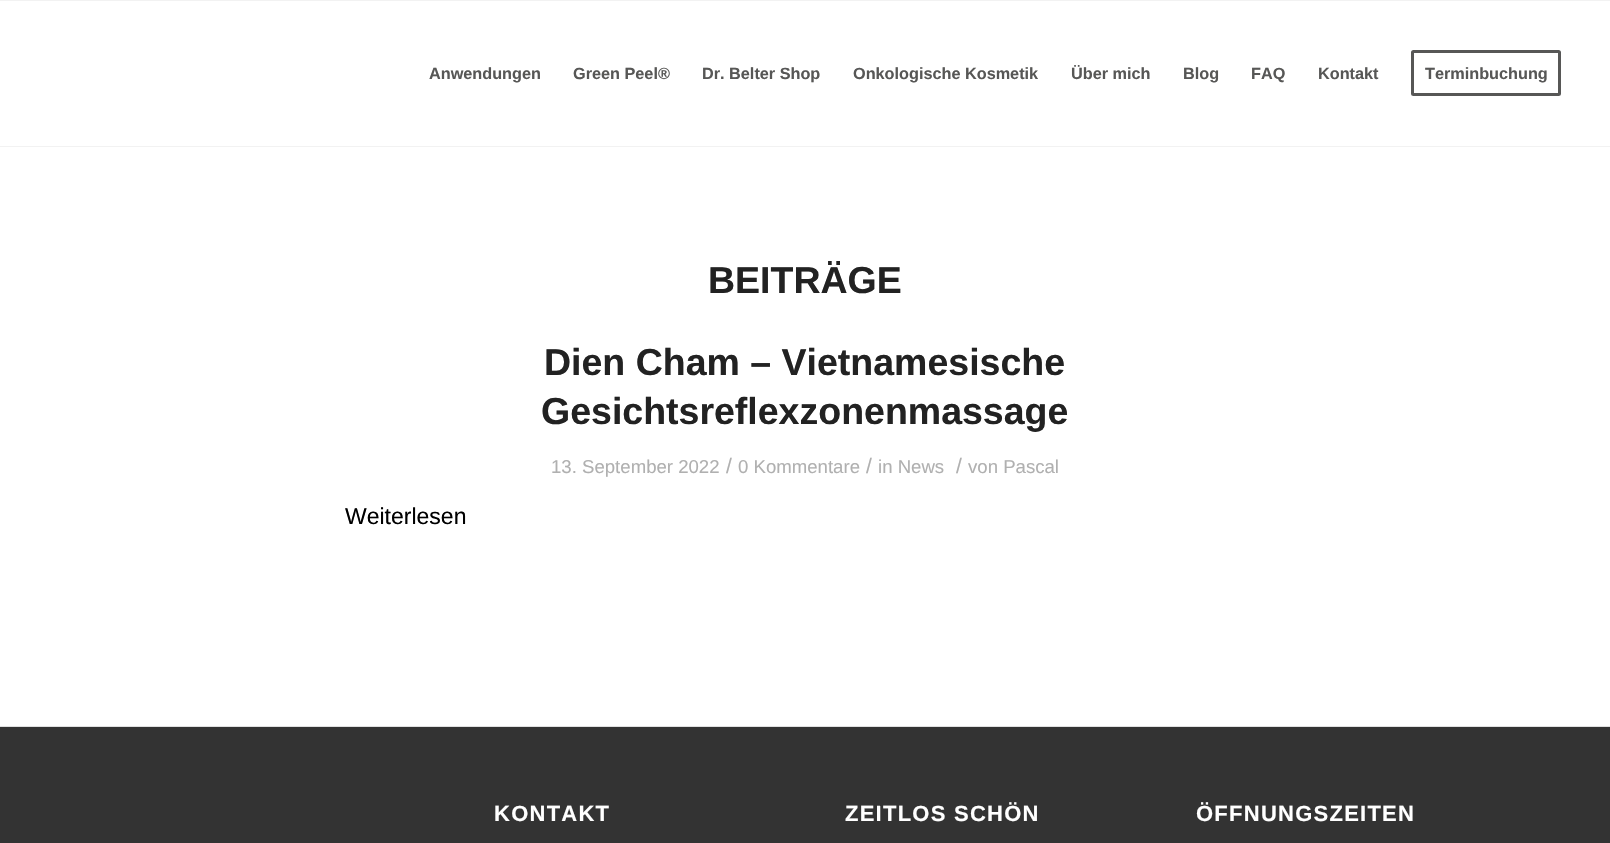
#include "include/core/SkBlurTypes.h"
#include "include/core/SkCanvas.h"
#include "include/core/SkData.h"
#include "include/core/SkFont.h"
#include "include/core/SkFontMgr.h"
#include "include/core/SkImage.h"
#include "include/core/SkMaskFilter.h"
#include "include/core/SkPaint.h"
#include "include/core/SkPathBuilder.h"
#include "include/core/SkTextBlob.h"
#include "include/effects/SkDashPathEffect.h"
#include "include/effects/SkGradientShader.h"
#include "include/utils/SkParsePath.h"

extern sk_sp<SkFontMgr> fontMgr;

void draw(SkCanvas* canvas) {
    SkPaint p;
    p.setAntiAlias(true);
    auto font = [&](const char* family, int weight, float size, bool italic = false) {
        SkFontStyle style(weight, SkFontStyle::kNormal_Width,
            italic ? SkFontStyle::kItalic_Slant : SkFontStyle::kUpright_Slant);
        SkFont result(fontMgr->matchFamilyStyle(family, style), size);
        result.setSubpixel(true);
        return result;
    };
    auto drawTracked = [&](const char* s, float x, float y, const SkFont& font, const SkPaint& ink, float letter, float word) {
        std::vector<SkGlyphID> glyphs(font.countText(s, strlen(s), SkTextEncoding::kUTF8));
        std::vector<float> xs(glyphs.size());
        font.textToGlyphs(s, strlen(s), SkTextEncoding::kUTF8, glyphs);
        font.getXPos(glyphs, xs, x);
        float extra = 0;
        for (size_t i = 0; i < glyphs.size(); i++) {
            xs[i] += extra;
            extra += letter + word * (glyphs[i] == font.unicharToGlyph(' '));
        }
        canvas->drawTextBlob(SkTextBlob::MakeFromPosHGlyphs(glyphs, xs, y, font), 0, 0, ink);
    };
    canvas->clear(0xFFFFFFFF);
    p.setColor(0xFFF2F2F2);
    canvas->drawRect(SkRect::MakeLTRB(0, 0, 1610, 1), p);
    canvas->drawRect(SkRect::MakeLTRB(0, 146, 1610, 147), p);
    auto font1 = font("Liberation Sans", 700, 16.25f);
    p.setColor(0xFF575756);
    {
        const struct { const char* s; float x, y; } items[] = {
            {"Anwendungen", 429, 79},
            {"Green Peel®", 573, 79},
            {"Dr. Belter Shop", 702, 79},
            {"Onkologische Kosmetik", 853, 79},
            {"Über mich", 1071, 79},
            {"Blog", 1183, 79},
            {"FAQ", 1251, 79},
            {"Kontakt", 1318, 79},
        };
        for (auto [s, x, y] : items) {
            canvas->drawString(s, x, y, font1, p);
        }
    }
    p.setStyle(SkPaint::kStroke_Style);
    p.setStrokeWidth(3);
    canvas->drawRoundRect(SkRect::MakeLTRB(1412.5f, 51.5f, 1559.5f, 94.5f), 1, 1, p);
    p.setStyle(SkPaint::kFill_Style);
    canvas->drawString("Terminbuchung", 1425, 79, font1, p);
    auto font2 = font("Liberation Sans", 700, 37.5f);
    p.setColor(0xFF222222);
    {
        const struct { const char* s; float x, y; } items[] = {
            {"BEITRÄGE", 708, 293},
            {"Dien Cham – Vietnamesische", 544, 375},
            {"Gesichtsreflexzonenmassage", 541, 424},
        };
        for (auto [s, x, y] : items) {
            canvas->drawString(s, x, y, font2, p);
        }
    }
    auto font3 = font("Liberation Sans", 400, 18.6f);
    p.setColor(0xFFB0B0B0);
    canvas->drawString("13. September 2022", 551, 473, font3, p);
    auto font4 = font("Liberation Sans", 400, 21);
    canvas->drawString("/", 726, 473, font4, p);
    canvas->drawString("0 Kommentare", 738, 473, font3, p);
    canvas->drawString("/", 866, 473, font4, p);
    canvas->drawString("in News", 878, 473, font3, p);
    canvas->drawString("/", 956, 473, font4, p);
    canvas->drawString("von Pascal", 968, 473, font3, p);
    auto font5 = font("Liberation Sans", 400, 23);
    p.setColor(0xFF000000);
    canvas->drawString("Weiterlesen", 345, 524, font5, p);
    p.setColor(0xFF333333);
    canvas->drawRect(SkRect::MakeLTRB(0, 727, 1610, 843), p);
    p.setColor(0xFFE0E0E0);
    canvas->drawRect(SkRect::MakeLTRB(0, 726, 1610, 727), p);
    auto font6 = font("Liberation Sans", 700, 22);
    p.setColor(0xFFFFFFFF);
    {
        const struct { const char* s; float x, y; } items[] = {
            {"KONTAKT", 494, 821},
            {"ZEITLOS SCHÖN", 845, 821},
            {"ÖFFNUNGSZEITEN", 1196, 821},
        };
        for (auto [s, x, y] : items) {
            drawTracked(s, x, y, font6, p, 1.25f, 0);
        }
    }
}
